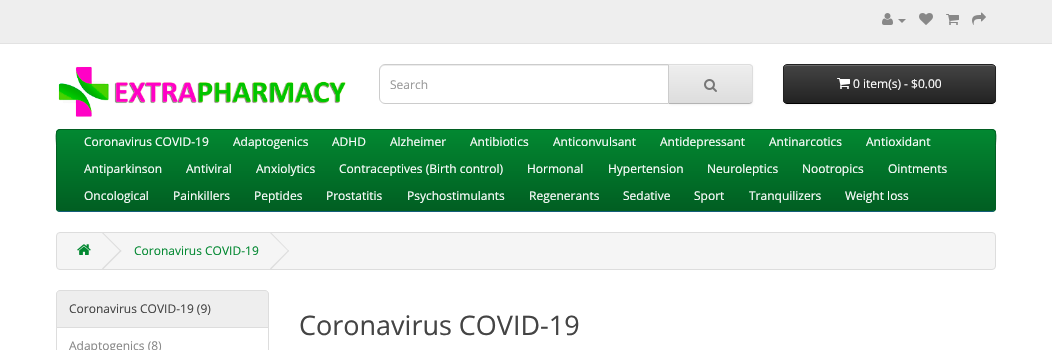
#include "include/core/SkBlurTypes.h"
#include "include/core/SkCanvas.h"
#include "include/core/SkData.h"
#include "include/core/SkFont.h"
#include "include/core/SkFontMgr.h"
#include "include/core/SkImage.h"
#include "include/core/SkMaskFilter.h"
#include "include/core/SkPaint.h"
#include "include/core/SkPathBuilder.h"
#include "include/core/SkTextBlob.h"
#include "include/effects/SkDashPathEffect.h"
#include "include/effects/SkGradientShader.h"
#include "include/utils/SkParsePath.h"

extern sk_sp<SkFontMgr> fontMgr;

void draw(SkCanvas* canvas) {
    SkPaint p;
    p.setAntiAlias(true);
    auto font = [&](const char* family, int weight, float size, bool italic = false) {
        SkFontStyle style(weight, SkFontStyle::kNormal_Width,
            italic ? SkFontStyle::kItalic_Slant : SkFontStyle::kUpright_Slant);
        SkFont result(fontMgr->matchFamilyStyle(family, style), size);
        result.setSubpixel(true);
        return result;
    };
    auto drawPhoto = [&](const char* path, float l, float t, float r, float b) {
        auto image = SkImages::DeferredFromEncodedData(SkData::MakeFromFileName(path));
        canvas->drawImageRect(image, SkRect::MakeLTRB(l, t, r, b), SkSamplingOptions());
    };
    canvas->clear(0xFFFFFFFF);
    p.setColor(0xFFEEEEEE);
    canvas->drawRect(SkRect::MakeLTRB(0, 0, 1052, 43), p);
    p.setColor(0xFFE2E2E2);
    canvas->drawRect(SkRect::MakeLTRB(0, 43, 1052, 44), p);
    drawPhoto("media/1.png", 882, 13, 893, 25);
    p.setColor(0xFF888888);
    canvas->drawPath(SkPathBuilder().moveTo(898, 19).lineTo(906, 19).lineTo(902, 23).close().detach(), p);
    drawPhoto("media/2.png", 919, 13, 933, 25);
    drawPhoto("media/3.png", 946, 14, 959, 25);
    drawPhoto("media/4.png", 972, 12, 986, 25);
    drawPhoto("media/5.png", 58, 66, 346, 117);
    p.setColor(0x0D000000);
    p.setMaskFilter(SkMaskFilter::MakeBlur(kNormal_SkBlurStyle, 1));
    canvas->drawRoundRect(SkRect::MakeLTRB(668, 65, 753, 105), 4, 4, p);
    p.setMaskFilter(nullptr);
    p.setColor(0xFFE7E7E7);
    canvas->drawPath(SkPathBuilder().moveTo(668, 64).lineTo(749, 64).cubicTo(751, 64, 753, 66, 753, 68).lineTo(753, 100).cubicTo(753, 102, 751, 104, 749, 104).lineTo(668, 104).close().detach(), p);
    canvas->save();
    canvas->clipPath(SkPathBuilder().moveTo(668, 64).lineTo(749, 64).cubicTo(751, 64, 753, 66, 753, 68).lineTo(753, 100).cubicTo(753, 102, 751, 104, 749, 104).lineTo(668, 104).close().detach(), true);
    {
        const SkColor colors[] = {0xFFEEEEEE, 0xFFDDDDDD};
        const float stops[] = {0, 1};
        const SkPoint ends[] = {{711, 65}, {711, 103}};
        p.setShader(SkGradientShader::MakeLinear(ends, colors, stops, 2, SkTileMode::kClamp));
        p.setAlpha(255);
    }
    canvas->drawRect(SkRect::MakeLTRB(669, 65, 753, 103), p);
    canvas->restore();
    p.setShader(nullptr);
    p.setColor(0xFFF1F1F1);
    canvas->drawPath(SkPathBuilder().moveTo(669, 66).lineTo(749, 66).cubicTo(751, 66, 752, 67, 752, 69).lineTo(752, 68).cubicTo(752, 66, 751, 65, 749, 65).lineTo(669, 65).close().detach(), p);
    p.setColor(0xFFDDDDDD);
    canvas->drawPath(SkPathBuilder().moveTo(668, 64).lineTo(669, 65).lineTo(750, 65).lineTo(751, 66).lineTo(752, 65).lineTo(749, 64).close().detach(), p);
    canvas->drawPath(SkPathBuilder().moveTo(753, 100).lineTo(753, 68).cubicTo(753, 67, 752.5f, 66, 752, 65).lineTo(751, 66).cubicTo(752, 66, 752, 67, 752, 68).lineTo(752, 100).cubicTo(752, 101, 752, 102, 751, 102).lineTo(752, 103).cubicTo(752.5f, 102, 753, 101, 753, 100).close().detach(), p);
    p.setColor(0xFFB3B3B3);
    canvas->drawPath(SkPathBuilder().moveTo(749, 104).lineTo(752, 103).lineTo(751, 102).lineTo(750, 103).lineTo(669, 103).lineTo(668, 104).close().detach(), p);
    p.setColor(0xFFFFFFFF);
    canvas->drawPath(SkPathBuilder().moveTo(385, 64).lineTo(669, 64).lineTo(669, 104).lineTo(385, 104).cubicTo(381.5f, 104, 379, 101.5f, 379, 98).lineTo(379, 70).cubicTo(379, 66.5f, 381.5f, 64, 385, 64).close().detach(), p);
    p.setColor(0xFFECECEC);
    canvas->drawPath(SkPathBuilder().moveTo(385, 66).lineTo(668, 66).lineTo(668, 65).lineTo(385, 65).cubicTo(382, 65, 380, 67, 380, 70).lineTo(380, 71).cubicTo(380, 68, 382, 66, 385, 66).close().detach(), p);
    p.setStyle(SkPaint::kStroke_Style);
    p.setStrokeWidth(1);
    p.setColor(0xFFCCCCCC);
    canvas->drawPath(SkPathBuilder().moveTo(385, 64.5f).lineTo(668.5f, 64.5f).lineTo(668.5f, 103.5f).lineTo(385, 103.5f).cubicTo(382, 103.5f, 379.5f, 101, 379.5f, 98).lineTo(379.5f, 70).cubicTo(379.5f, 67, 382, 64.5f, 385, 64.5f).close().detach(), p);
    auto font1 = font("Open Sans", 400, 12);
    p.setStyle(SkPaint::kFill_Style);
    p.setColor(0xFF999999);
    canvas->drawString("Search", 390, 89, font1, p);
    drawPhoto("media/6.png", 704, 79, 717, 92);
    p.setColor(0x0D000000);
    p.setMaskFilter(SkMaskFilter::MakeBlur(kNormal_SkBlurStyle, 1));
    canvas->drawRoundRect(SkRect::MakeLTRB(783, 65, 996, 105), 4, 4, p);
    p.setMaskFilter(nullptr);
    canvas->save();
    canvas->clipPath(SkPathBuilder().moveTo(787, 64).lineTo(992, 64).cubicTo(994, 64, 996, 66, 996, 68).lineTo(996, 100).cubicTo(996, 102, 994, 104, 992, 104).lineTo(787, 104).cubicTo(785, 104, 783, 102, 783, 100).lineTo(783, 68).cubicTo(783, 66, 785, 64, 787, 64).close().detach(), true);
    {
        const SkColor colors[] = {0xFF444444, 0xFF222222};
        const float stops[] = {0, 1};
        const SkPoint ends[] = {{890, 65}, {890, 103}};
        p.setShader(SkGradientShader::MakeLinear(ends, colors, stops, 2, SkTileMode::kClamp));
        p.setAlpha(255);
    }
    canvas->drawRect(SkRect::MakeLTRB(783, 65, 996, 103), p);
    canvas->restore();
    p.setShader(nullptr);
    p.setColor(0xFF696969);
    canvas->drawPath(SkPathBuilder().moveTo(787, 66).lineTo(992, 66).cubicTo(994, 66, 995, 67, 995, 69).lineTo(995, 68).cubicTo(995, 66, 994, 65, 992, 65).lineTo(787, 65).cubicTo(785, 65, 784, 66, 784, 68).lineTo(784, 69).cubicTo(784, 67, 785, 66, 787, 66).close().detach(), p);
    p.setStyle(SkPaint::kStroke_Style);
    p.setColor(0xFF000000);
    canvas->drawPath(SkPathBuilder().moveTo(994.5f, 102.5f).cubicTo(994, 103, 993, 103.5f, 992, 103.5f).lineTo(787, 103.5f).cubicTo(786, 103.5f, 785, 103, 784.5f, 102.5f).detach(), p);
    p.setColor(0xFF222222);
    canvas->drawPath(SkPathBuilder().moveTo(784.5f, 102.5f).cubicTo(784, 102, 783.5f, 101, 783.5f, 100).lineTo(783.5f, 68).cubicTo(783.5f, 67, 784, 66, 784.5f, 65.5f).cubicTo(785, 65, 786, 64.5f, 787, 64.5f).lineTo(992, 64.5f).cubicTo(993, 64.5f, 994, 65, 994.5f, 65.5f).cubicTo(995, 66, 995.5f, 67, 995.5f, 68).lineTo(995.5f, 100).cubicTo(995.5f, 101, 995, 102, 994.5f, 102.5f).detach(), p);
    drawPhoto("media/7.png", 837, 78, 850, 89);
    p.setStyle(SkPaint::kFill_Style);
    p.setColor(0xFFFFFFFF);
    canvas->drawString("0 item(s) - $0.00", 853, 88, font1, p);
    p.setColor(0xFF01792C);
    canvas->drawRoundRect(SkRect::MakeLTRB(56, 129, 996, 212), 4, 4, p);
    canvas->save();
    canvas->clipPath(SkPathBuilder().moveTo(60, 129).lineTo(992, 129).cubicTo(994, 129, 996, 131, 996, 133).lineTo(996, 208).cubicTo(996, 210, 994, 212, 992, 212).lineTo(60, 212).cubicTo(58, 212, 56, 210, 56, 208).lineTo(56, 133).cubicTo(56, 131, 58, 129, 60, 129).close().detach(), true);
    {
        const SkColor colors[] = {0xFF028831, 0xFF015E22};
        const float stops[] = {0, 1};
        const SkPoint ends[] = {{526, 130}, {526, 211}};
        p.setShader(SkGradientShader::MakeLinear(ends, colors, stops, 2, SkTileMode::kClamp));
        p.setAlpha(255);
    }
    canvas->drawRect(SkRect::MakeLTRB(56, 130, 996, 211), p);
    canvas->restore();
    p.setStyle(SkPaint::kStroke_Style);
    p.setShader(nullptr);
    p.setColor(0xFF145E7A);
    canvas->drawPath(SkPathBuilder().moveTo(994.5f, 210.5f).lineTo(992, 211.5f).lineTo(60, 211.5f).lineTo(57.5f, 210.5f).detach(), p);
    p.setColor(0xFF015E22);
    canvas->drawPath(SkPathBuilder().moveTo(57.5f, 210.5f).lineTo(56.5f, 208).lineTo(56.5f, 145.5f).cubicTo(56.5f, 139, 54.5f, 129.5f, 60, 129.5f).lineTo(992, 129.5f).cubicTo(997.5f, 129.5f, 995.5f, 139, 995.5f, 145.5f).lineTo(995.5f, 208).lineTo(994.5f, 210.5f).detach(), p);
    p.setStyle(SkPaint::kFill_Style);
    p.setColor(0xFFFFFFFF);
    {
        const struct { const char* s; float x, y; } items[] = {
            {"Coronavirus COVID-19", 84, 146},
            {"Adaptogenics", 233, 146},
            {"ADHD", 332, 146},
            {"Alzheimer", 390, 146},
            {"Antibiotics", 470, 146},
            {"Anticonvulsant", 553, 146},
            {"Antidepressant", 660, 146},
            {"Antinarcotics", 769, 146},
            {"Antioxidant", 866, 146},
            {"Antiparkinson", 84, 173},
            {"Antiviral", 186, 173},
            {"Anxiolytics", 256, 173},
            {"Contraceptives (Birth control)", 339, 173},
            {"Hormonal", 527, 173},
            {"Hypertension", 608, 173},
            {"Neuroleptics", 707, 173},
            {"Nootropics", 802, 173},
            {"Ointments", 888, 173},
            {"Oncological", 84, 200},
            {"Painkillers", 173, 200},
            {"Peptides", 254, 200},
            {"Prostatitis", 326, 200},
            {"Psychostimulants", 407, 200},
            {"Regenerants", 529, 200},
            {"Sedative", 623, 200},
            {"Sport", 694, 200},
            {"Tranquilizers", 749, 200},
            {"Weight loss", 845, 200},
        };
        for (auto [s, x, y] : items) {
            canvas->drawString(s, x, y, font1, p);
        }
    }
    p.setColor(0xFFF5F5F5);
    canvas->drawRoundRect(SkRect::MakeLTRB(56.5f, 232.5f, 995.5f, 269.5f), 3.5f, 3.5f, p);
    p.setStyle(SkPaint::kStroke_Style);
    p.setColor(0xFFDDDDDD);
    canvas->drawRoundRect(SkRect::MakeLTRB(56.5f, 232.5f, 995.5f, 269.5f), 3.5f, 3.5f, p);
    drawPhoto("media/8.png", 77, 244, 91, 255);
    p.setStyle(SkPaint::kFill_Style);
    canvas->drawPath(SkPathBuilder().moveTo(102, 233).lineTo(103, 232.5f).lineTo(121.5f, 251).lineTo(120.5f, 251.5f).close().detach(), p);
    canvas->drawPath(SkPathBuilder().moveTo(102, 268.5f).lineTo(120.5f, 250).lineTo(121.5f, 251).lineTo(103, 269.5f).close().detach(), p);
    p.setColor(0xFF028831);
    canvas->drawString("Coronavirus COVID-19", 134, 255, font1, p);
    p.setColor(0xFFDDDDDD);
    canvas->drawPath(SkPathBuilder().moveTo(270, 233).lineTo(271, 232.5f).lineTo(289, 251).lineTo(288.5f, 251.5f).close().detach(), p);
    canvas->drawPath(SkPathBuilder().moveTo(270, 268.5f).lineTo(288.5f, 250).lineTo(289, 251).lineTo(271, 269.5f).close().detach(), p);
    p.setStyle(SkPaint::kStroke_Style);
    canvas->drawRect(SkRect::MakeLTRB(56.5f, 327.5f, 268.5f, 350.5f), p);
    p.setStyle(SkPaint::kFill_Style);
    p.setColor(0xFFEEEEEE);
    canvas->drawPath(SkPathBuilder().moveTo(60, 290.5f).lineTo(265, 290.5f).cubicTo(267, 290.5f, 268.5f, 292, 268.5f, 294).lineTo(268.5f, 327.5f).lineTo(56.5f, 327.5f).lineTo(56.5f, 294).cubicTo(56.5f, 292, 58, 290.5f, 60, 290.5f).close().detach(), p);
    p.setStyle(SkPaint::kStroke_Style);
    p.setColor(0xFFDDDDDD);
    canvas->drawPath(SkPathBuilder().moveTo(60, 290.5f).lineTo(265, 290.5f).cubicTo(267, 290.5f, 268.5f, 292, 268.5f, 294).lineTo(268.5f, 327.5f).lineTo(56.5f, 327.5f).lineTo(56.5f, 294).cubicTo(56.5f, 292, 58, 290.5f, 60, 290.5f).close().detach(), p);
    p.setStyle(SkPaint::kFill_Style);
    p.setColor(0xFF444444);
    canvas->drawString("Coronavirus COVID-19 (9)", 69, 313, font1, p);
    p.setColor(0xFF888888);
    canvas->drawString("Adaptogenics (8)", 69, 350, font1, p);
    auto font2 = font("Open Sans", 400, 27);
    p.setColor(0xFF444444);
    canvas->drawString("Coronavirus COVID-19", 299, 335, font2, p);
}
